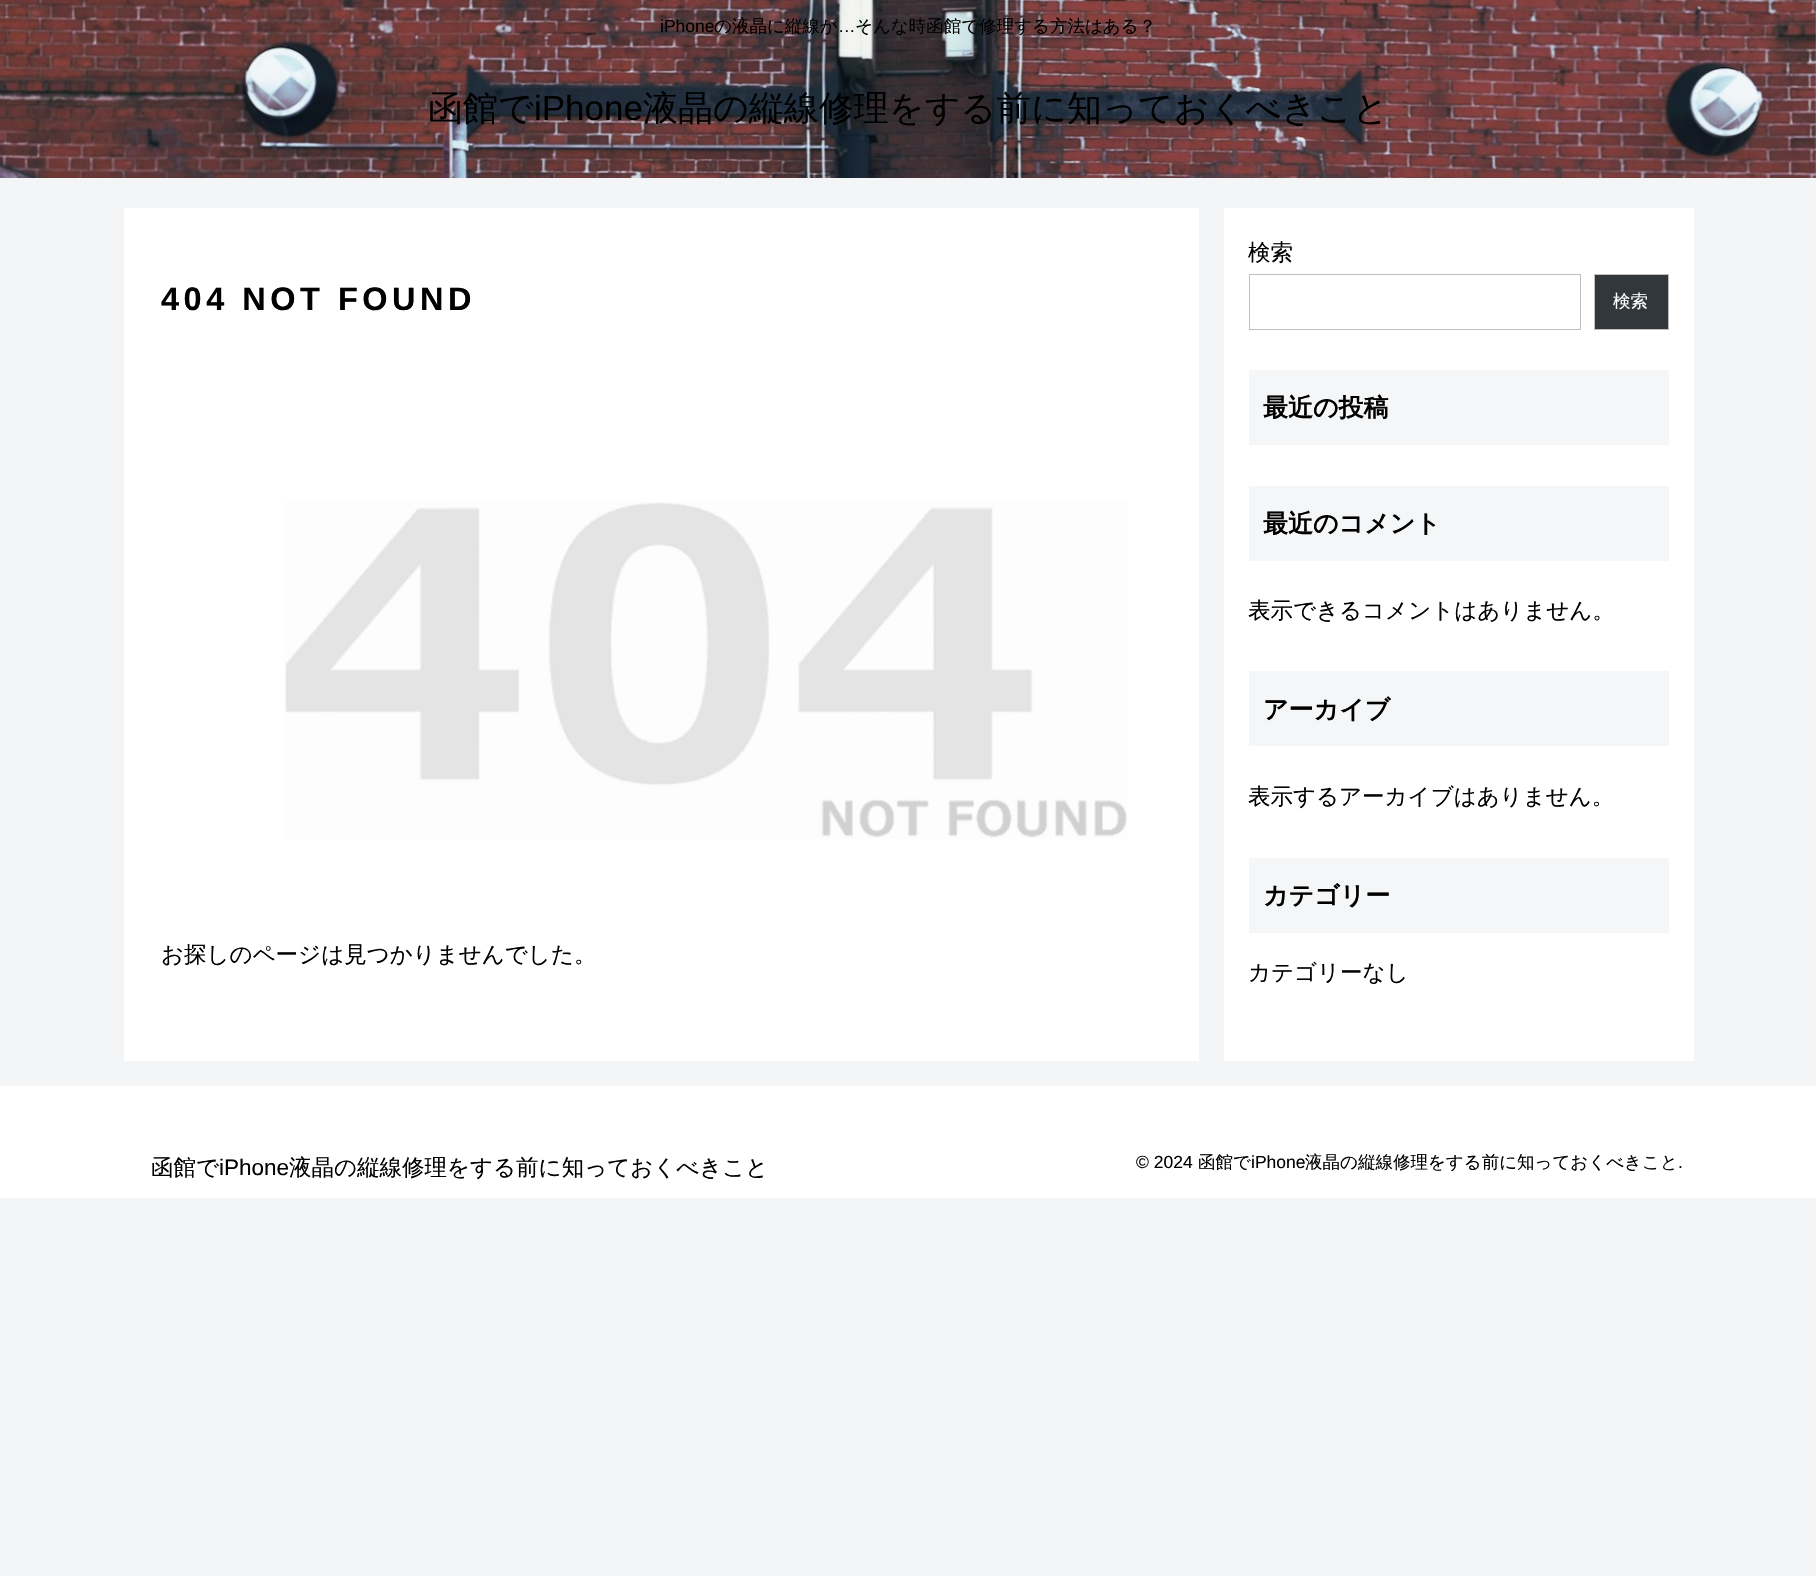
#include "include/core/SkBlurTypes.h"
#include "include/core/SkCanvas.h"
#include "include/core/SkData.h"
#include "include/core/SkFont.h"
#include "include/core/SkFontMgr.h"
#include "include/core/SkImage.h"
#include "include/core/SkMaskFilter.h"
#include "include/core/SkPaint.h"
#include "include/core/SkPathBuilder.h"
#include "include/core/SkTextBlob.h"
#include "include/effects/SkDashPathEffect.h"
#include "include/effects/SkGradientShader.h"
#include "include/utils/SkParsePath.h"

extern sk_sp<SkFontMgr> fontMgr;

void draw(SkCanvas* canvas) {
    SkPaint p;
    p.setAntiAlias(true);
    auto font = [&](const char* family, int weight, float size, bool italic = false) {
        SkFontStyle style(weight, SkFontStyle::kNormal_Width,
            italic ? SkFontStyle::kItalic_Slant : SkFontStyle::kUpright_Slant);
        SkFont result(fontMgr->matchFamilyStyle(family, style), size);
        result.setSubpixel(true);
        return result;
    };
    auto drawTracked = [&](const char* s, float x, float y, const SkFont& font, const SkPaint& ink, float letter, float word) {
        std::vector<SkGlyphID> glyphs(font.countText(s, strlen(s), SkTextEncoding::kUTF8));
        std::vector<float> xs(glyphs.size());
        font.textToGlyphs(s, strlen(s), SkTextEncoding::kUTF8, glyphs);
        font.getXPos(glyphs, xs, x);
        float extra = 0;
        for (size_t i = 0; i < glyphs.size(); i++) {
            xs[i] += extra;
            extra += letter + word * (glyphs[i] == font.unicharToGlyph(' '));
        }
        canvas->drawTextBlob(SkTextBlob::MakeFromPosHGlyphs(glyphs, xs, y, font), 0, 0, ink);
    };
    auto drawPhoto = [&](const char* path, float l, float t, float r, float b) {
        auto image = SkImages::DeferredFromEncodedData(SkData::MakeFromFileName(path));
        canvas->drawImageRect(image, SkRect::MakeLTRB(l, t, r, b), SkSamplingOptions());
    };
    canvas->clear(0xFFF4F5F7);
    drawPhoto("media/1.png", 0, 0, 1816, 178);
    auto font1 = font("Liberation Sans", 400, 17.5f);
    p.setColor(0xFF000000);
    canvas->drawString("iPhone", 660, 32, font1, p);
    auto font2 = font("WenQuanYi Zen Hei", 500, 17.5f);
    canvas->drawString("の液晶に縦線が", 714, 32, font2, p);
    canvas->drawString("…", 838, 32, font1, p);
    canvas->drawString("そんな時函館で修理する方法はある？", 855, 32, font2, p);
    auto font3 = font("WenQuanYi Zen Hei", 500, 35);
    canvas->drawString("函館で", 428, 120, font3, p);
    auto font4 = font("Liberation Sans", 400, 35);
    canvas->drawString("iPhone", 534, 120, font4, p);
    canvas->drawString("液晶の縦線修理をする前に知っておくべきこと", 643, 120, font3, p);
    p.setColor(0xFFFFFFFF);
    canvas->drawRect(SkRect::MakeLTRB(124, 208, 1199, 1061), p);
    auto font5 = font("Liberation Sans", 700, 32.5f);
    p.setColor(0xFF000000);
    drawTracked("404 NOT FOUND", 161, 310, font5, p, 4.5f, 0);
    drawPhoto("media/2.png", 284, 501, 1127, 839);
    auto font6 = font("WenQuanYi Zen Hei", 500, 22.5f);
    canvas->drawString("お探しのページは見つかりませんでした。", 161, 962, font6, p);
    p.setColor(0xFFFFFFFF);
    canvas->drawRect(SkRect::MakeLTRB(1224, 208, 1694, 1061), p);
    p.setColor(0xFF000000);
    canvas->drawString("検索", 1248, 260, font6, p);
    p.setStyle(SkPaint::kStroke_Style);
    p.setStrokeWidth(1);
    p.setColor(0xFFC0BFBF);
    canvas->drawRect(SkRect::MakeLTRB(1249.5f, 274.5f, 1580.5f, 329.5f), p);
    p.setStyle(SkPaint::kFill_Style);
    p.setColor(0xFF32373C);
    canvas->drawRect(SkRect::MakeLTRB(1594.5f, 274.5f, 1668.5f, 329.5f), p);
    p.setStyle(SkPaint::kStroke_Style);
    p.setColor(0xFFC0BFBF);
    canvas->drawRect(SkRect::MakeLTRB(1594.5f, 274.5f, 1668.5f, 329.5f), p);
    p.setStyle(SkPaint::kFill_Style);
    p.setColor(0xFFFFFFFF);
    canvas->drawString("検索", 1613, 307, font2, p);
    p.setColor(0xFFF5F6F7);
    canvas->drawRect(SkRect::MakeLTRB(1249, 370, 1669, 445), p);
    auto font7 = font("WenQuanYi Zen Hei", 700, 25);
    p.setColor(0xFF000000);
    canvas->drawString("最近の投稿", 1263, 416, font7, p);
    p.setColor(0xFFF5F6F7);
    canvas->drawRect(SkRect::MakeLTRB(1249, 486, 1669, 561), p);
    p.setColor(0xFF000000);
    canvas->drawString("最近のコメント", 1263, 532, font7, p);
    canvas->drawString("表示できるコメントはありません。", 1248, 618, font6, p);
    p.setColor(0xFFF5F6F7);
    canvas->drawRect(SkRect::MakeLTRB(1249, 671, 1669, 746), p);
    p.setColor(0xFF000000);
    canvas->drawString("アーカイブ", 1263, 718, font7, p);
    canvas->drawString("表示するアーカイブはありません。", 1248, 804, font6, p);
    p.setColor(0xFFF5F6F7);
    canvas->drawRect(SkRect::MakeLTRB(1249, 858, 1669, 933), p);
    p.setColor(0xFF000000);
    canvas->drawString("カテゴリー", 1263, 904, font7, p);
    canvas->drawString("カテゴリーなし", 1248, 980, font6, p);
    p.setColor(0xFFFFFFFF);
    canvas->drawRect(SkRect::MakeLTRB(0, 1086, 1816, 1198), p);
    p.setColor(0xFF000000);
    canvas->drawString("函館で", 151, 1175, font6, p);
    auto font8 = font("Liberation Sans", 400, 22.5f);
    canvas->drawString("iPhone", 219, 1175, font8, p);
    canvas->drawString("液晶の縦線修理をする前に知っておくべきこと", 289, 1175, font6, p);
    canvas->drawString("© 2024", 1136, 1168, font1, p);
    canvas->drawString("函館で", 1198, 1168, font2, p);
    canvas->drawString("iPhone", 1251, 1168, font1, p);
    canvas->drawString("液晶の縦線修理をする前に知っておくべきこと", 1305, 1168, font2, p);
    canvas->drawString(".", 1678, 1168, font1, p);
}
